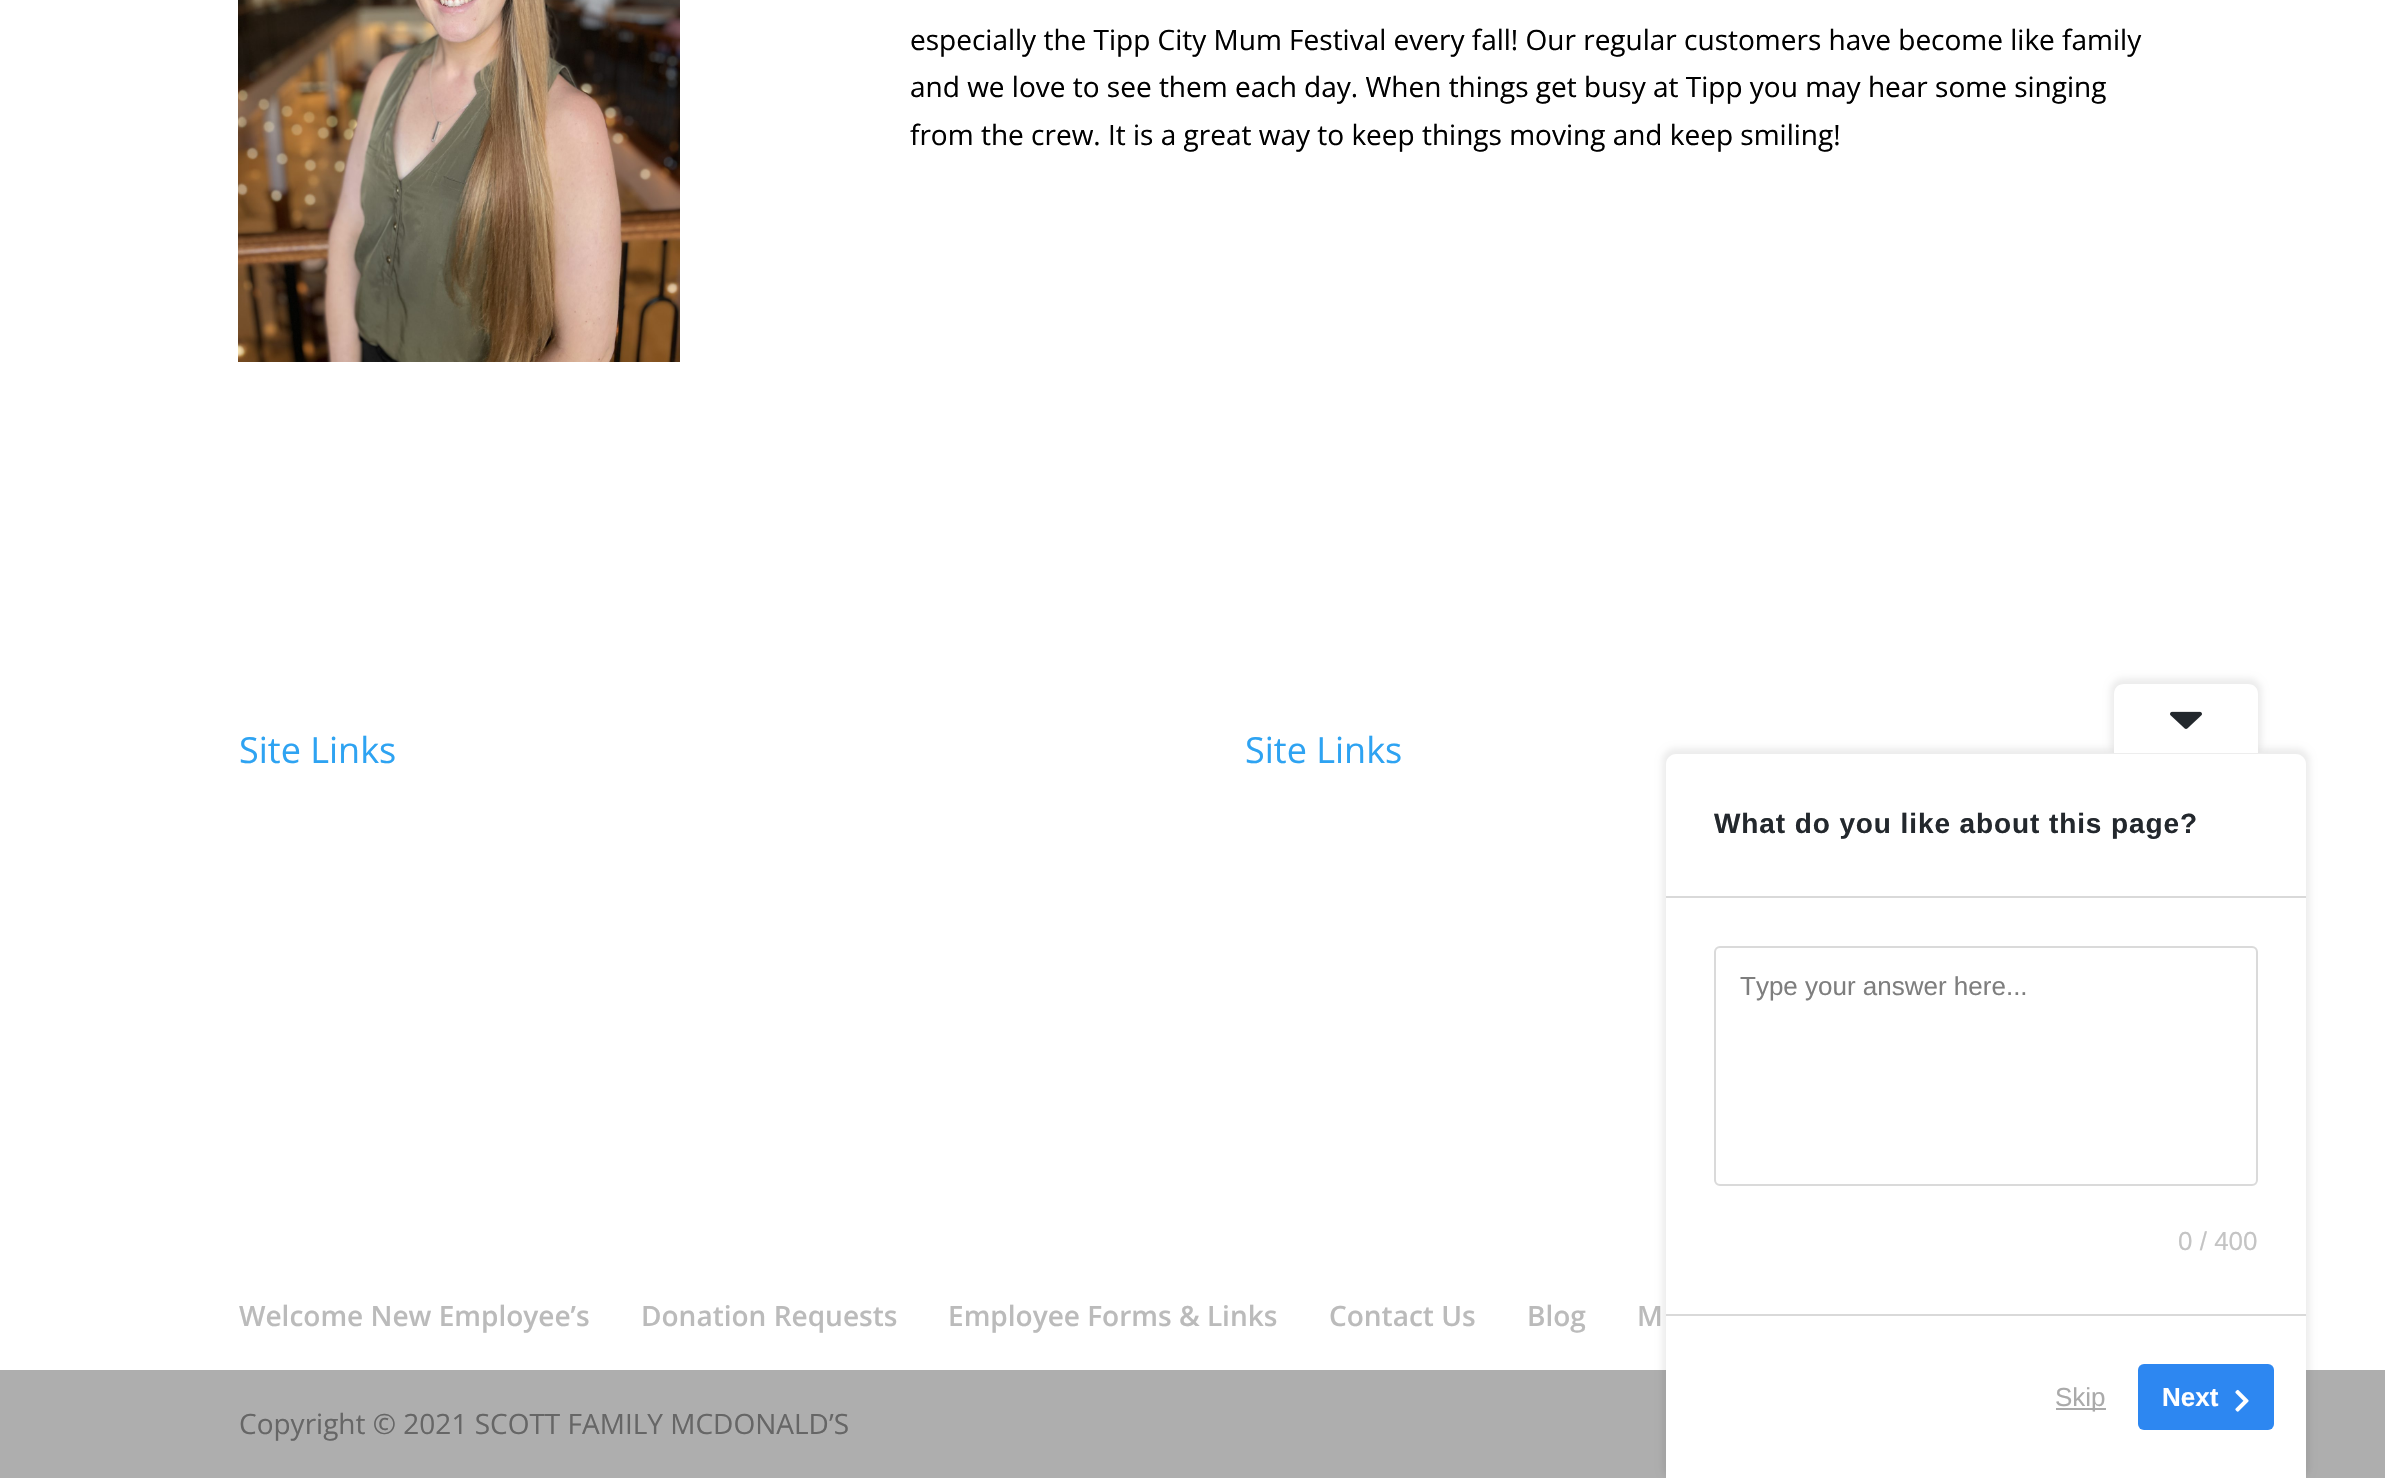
#include "include/core/SkBlurTypes.h"
#include "include/core/SkCanvas.h"
#include "include/core/SkData.h"
#include "include/core/SkFont.h"
#include "include/core/SkFontMgr.h"
#include "include/core/SkImage.h"
#include "include/core/SkMaskFilter.h"
#include "include/core/SkPaint.h"
#include "include/core/SkPathBuilder.h"
#include "include/core/SkTextBlob.h"
#include "include/effects/SkDashPathEffect.h"
#include "include/effects/SkGradientShader.h"
#include "include/utils/SkParsePath.h"

extern sk_sp<SkFontMgr> fontMgr;

void draw(SkCanvas* canvas) {
    SkPaint p;
    p.setAntiAlias(true);
    auto font = [&](const char* family, int weight, float size, bool italic = false) {
        SkFontStyle style(weight, SkFontStyle::kNormal_Width,
            italic ? SkFontStyle::kItalic_Slant : SkFontStyle::kUpright_Slant);
        SkFont result(fontMgr->matchFamilyStyle(family, style), size);
        result.setSubpixel(true);
        return result;
    };
    auto drawTracked = [&](const char* s, float x, float y, const SkFont& font, const SkPaint& ink, float letter, float word) {
        std::vector<SkGlyphID> glyphs(font.countText(s, strlen(s), SkTextEncoding::kUTF8));
        std::vector<float> xs(glyphs.size());
        font.textToGlyphs(s, strlen(s), SkTextEncoding::kUTF8, glyphs);
        font.getXPos(glyphs, xs, x);
        float extra = 0;
        for (size_t i = 0; i < glyphs.size(); i++) {
            xs[i] += extra;
            extra += letter + word * (glyphs[i] == font.unicharToGlyph(' '));
        }
        canvas->drawTextBlob(SkTextBlob::MakeFromPosHGlyphs(glyphs, xs, y, font), 0, 0, ink);
    };
    auto drawPhoto = [&](const char* path, float l, float t, float r, float b) {
        auto image = SkImages::DeferredFromEncodedData(SkData::MakeFromFileName(path));
        canvas->drawImageRect(image, SkRect::MakeLTRB(l, t, r, b), SkSamplingOptions());
    };
    canvas->clear(0xFFFFFFFF);
    drawPhoto("media/1.png", 238, 0, 680, 362);
    auto font1 = font("Open Sans", 400, 28);
    p.setColor(0xFF000000);
    {
        const struct { const char* s; float x, y; } items[] = {
            {"especially the Tipp City Mum Festival every fall! Our regular customers have become like family", 910, 50},
            {"and we love to see them each day. When things get busy at Tipp you may hear some singing", 910, 97},
            {"from the crew. It is a great way to keep things moving and keep smiling!", 910, 145},
        };
        for (auto [s, x, y] : items) {
            canvas->drawString(s, x, y, font1, p);
        }
    }
    auto font2 = font("Open Sans", 400, 36);
    p.setColor(0xFF2EA3F2);
    canvas->drawString("Site Links", 239, 763, font2, p);
    canvas->drawString("Site Links", 1245, 763, font2, p);
    auto font3 = font("Open Sans", 600, 28);
    p.setColor(0xFFBBBBBB);
    {
        const struct { const char* s; float x, y; } items[] = {
            {"Welcome New Employee’s", 239, 1326},
            {"Donation Requests", 641, 1326},
            {"Employee Forms & Links", 948, 1326},
            {"Contact Us", 1329, 1326},
            {"Blog", 1527, 1326},
            {"M", 1637, 1326},
        };
        for (auto [s, x, y] : items) {
            canvas->drawString(s, x, y, font3, p);
        }
    }
    p.setColor(0xFFAEAEAE);
    canvas->drawRect(SkRect::MakeLTRB(0, 1370, 2385, 1478), p);
    p.setColor(0xFF666666);
    canvas->drawString("Copyright © 2021 SCOTT FAMILY MCDONALD’S", 239, 1434, font1, p);
    p.setColor(0x12000000);
    p.setMaskFilter(SkMaskFilter::MakeBlur(kNormal_SkBlurStyle, 3));
    canvas->drawRoundRect(SkRect::MakeLTRB(1662, 748, 2310, 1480), 14, 14, p);
    p.setMaskFilter(nullptr);
    p.setColor(0xFFFFFFFF);
    canvas->drawPath(SkPathBuilder().moveTo(1676, 754).lineTo(2296, 754).cubicTo(2301.5f, 754, 2306, 758.5f, 2306, 764).lineTo(2306, 1478).lineTo(1666, 1478).lineTo(1666, 764).cubicTo(1666, 758.5f, 1670.5f, 754, 1676, 754).close().detach(), p);
    canvas->save();
    canvas->clipPath(SkPathBuilder().moveTo(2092.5f, 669).lineTo(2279.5f, 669).lineTo(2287, 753).lineTo(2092.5f, 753).close().detach(), true);
    p.setColor(0x12000000);
    p.setMaskFilter(SkMaskFilter::MakeBlur(kNormal_SkBlurStyle, 3));
    canvas->drawRoundRect(SkRect::MakeLTRB(2110, 678, 2262, 756), 14, 14, p);
    p.setMaskFilter(nullptr);
    canvas->restore();
    p.setColor(0xFFFFFFFF);
    canvas->drawPath(SkPathBuilder().moveTo(2124, 684).lineTo(2248, 684).cubicTo(2254, 684, 2258, 688, 2258, 694).lineTo(2258, 753).lineTo(2114, 753).lineTo(2114, 694).cubicTo(2114, 688, 2118, 684, 2124, 684).close().detach(), p);
    drawPhoto("media/2.png", 2170, 711, 2202, 729);
    auto font4 = font("Liberation Sans", 700, 28);
    p.setColor(0xFF23282D);
    drawTracked("What do you like about this page?", 1714, 833, font4, p, 0.9f, 0);
    p.setColor(0xFFD9D9D9);
    canvas->drawRect(SkRect::MakeLTRB(1666, 896, 2306, 898), p);
    canvas->drawRect(SkRect::MakeLTRB(1666, 1314, 2306, 1316), p);
    p.setStyle(SkPaint::kStroke_Style);
    p.setStrokeWidth(2);
    p.setColor(0xFFDADADA);
    canvas->drawRoundRect(SkRect::MakeLTRB(1715, 947, 2257, 1185), 5, 5, p);
    auto font5 = font("Liberation Sans", 400, 26);
    p.setStyle(SkPaint::kFill_Style);
    p.setColor(0xFF7E7E7E);
    canvas->drawString("Type your answer here...", 1740, 995, font5, p);
    p.setColor(0xFFC4C4C4);
    canvas->drawString("0 / 400", 2178, 1250, font5, p);
    p.setColor(0xFFAAAAAA);
    canvas->drawRect(SkRect::MakeLTRB(2056, 1408, 2106, 1410), p);
    canvas->drawString("Skip", 2055, 1406, font5, p);
    p.setColor(0xFF2D87F1);
    canvas->drawRoundRect(SkRect::MakeLTRB(2138, 1364, 2274, 1430), 6, 6, p);
    auto font6 = font("Liberation Sans", 700, 26);
    p.setColor(0xFFFFFFFF);
    canvas->drawString("Next", 2162, 1406, font6, p);
    drawPhoto("media/3.png", 2235, 1389, 2249, 1412);
}
